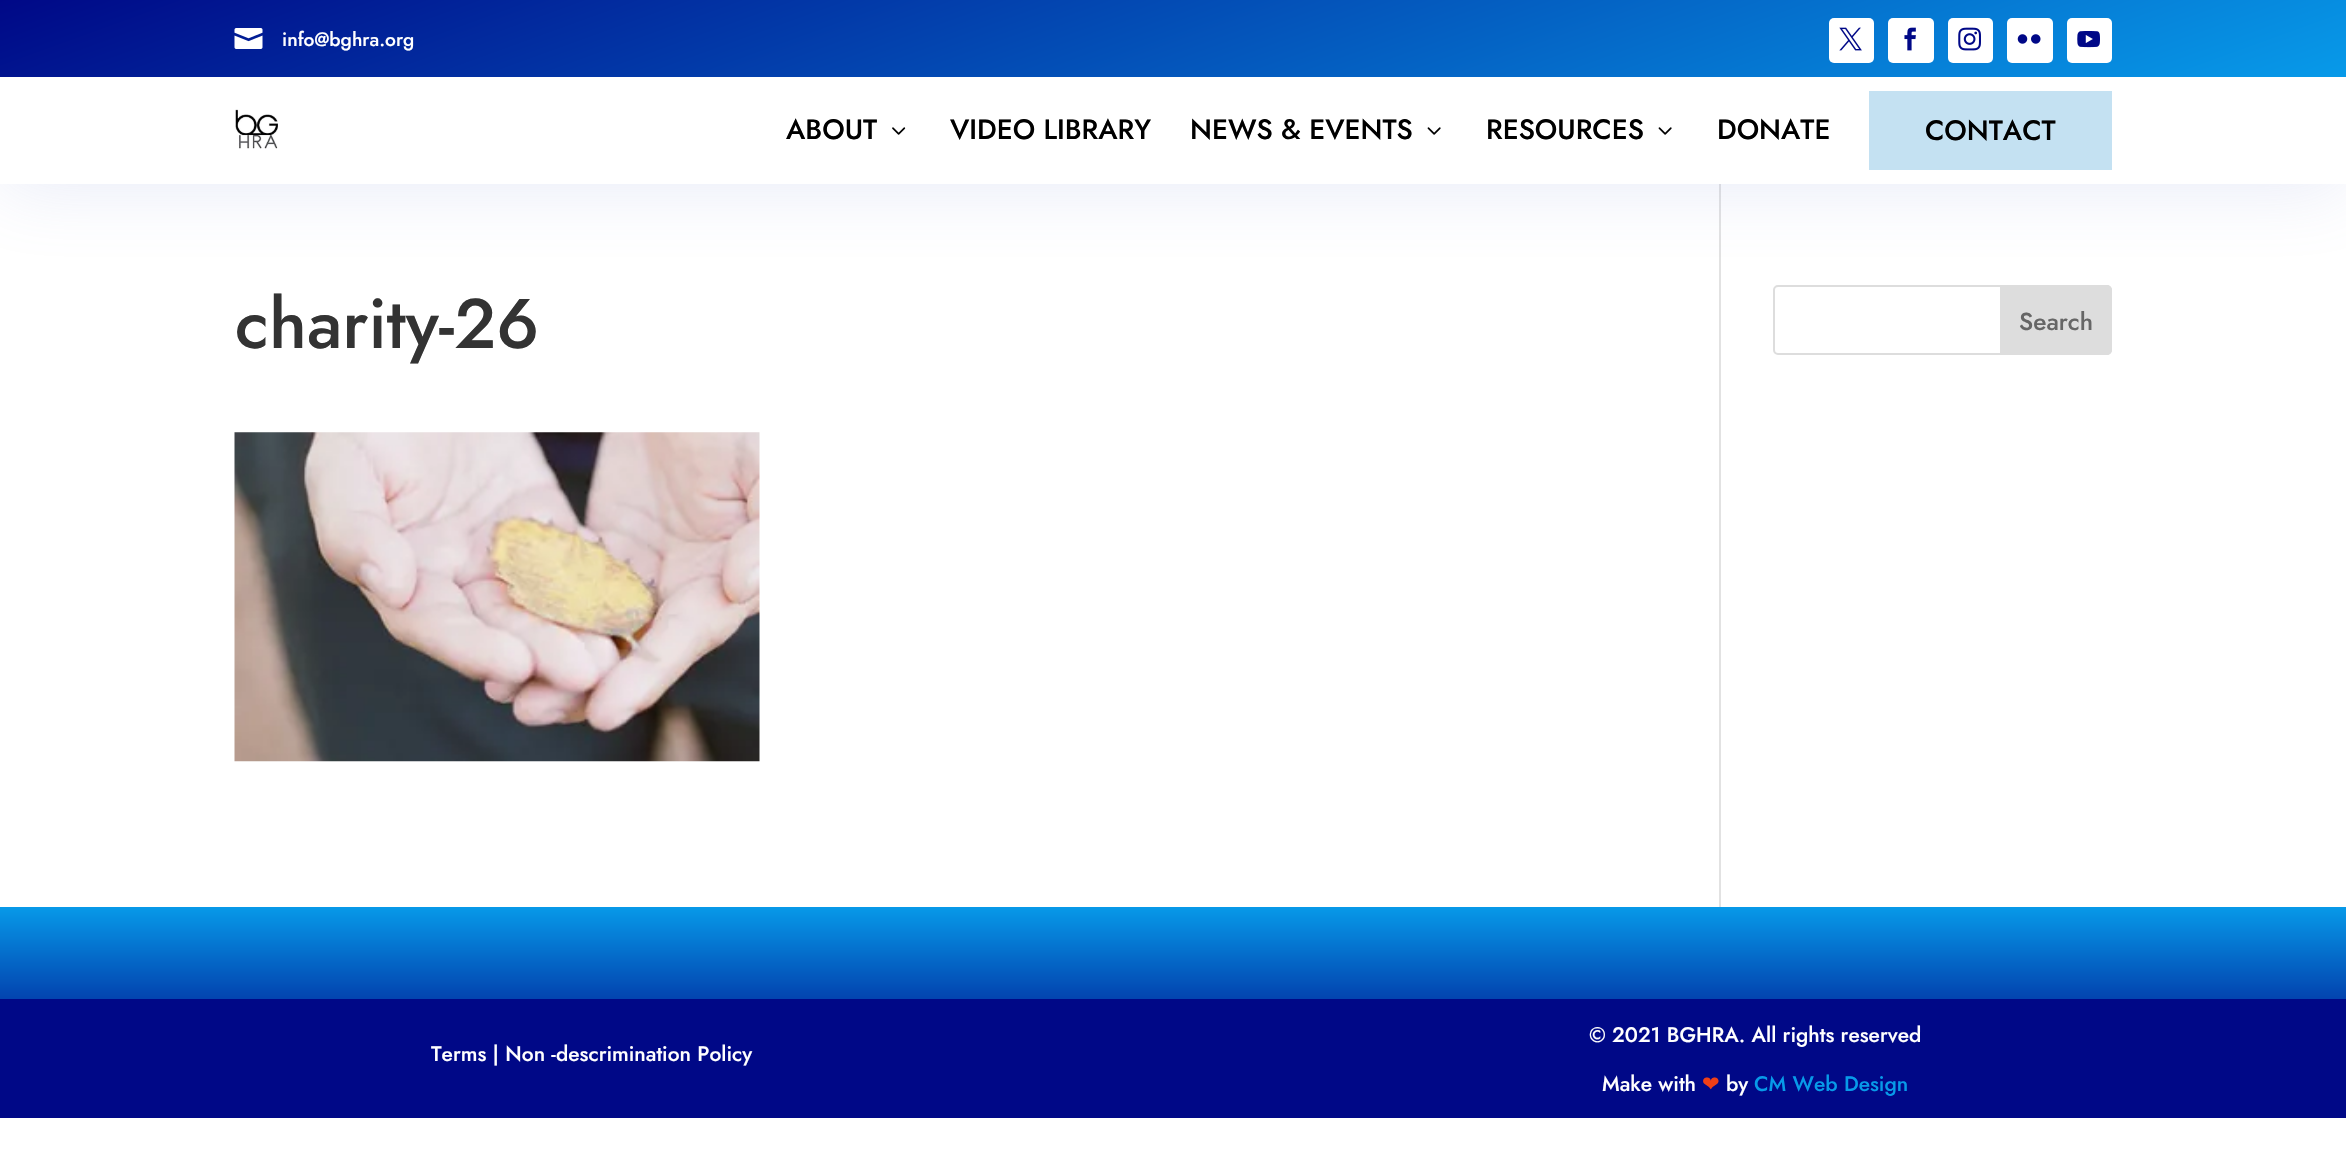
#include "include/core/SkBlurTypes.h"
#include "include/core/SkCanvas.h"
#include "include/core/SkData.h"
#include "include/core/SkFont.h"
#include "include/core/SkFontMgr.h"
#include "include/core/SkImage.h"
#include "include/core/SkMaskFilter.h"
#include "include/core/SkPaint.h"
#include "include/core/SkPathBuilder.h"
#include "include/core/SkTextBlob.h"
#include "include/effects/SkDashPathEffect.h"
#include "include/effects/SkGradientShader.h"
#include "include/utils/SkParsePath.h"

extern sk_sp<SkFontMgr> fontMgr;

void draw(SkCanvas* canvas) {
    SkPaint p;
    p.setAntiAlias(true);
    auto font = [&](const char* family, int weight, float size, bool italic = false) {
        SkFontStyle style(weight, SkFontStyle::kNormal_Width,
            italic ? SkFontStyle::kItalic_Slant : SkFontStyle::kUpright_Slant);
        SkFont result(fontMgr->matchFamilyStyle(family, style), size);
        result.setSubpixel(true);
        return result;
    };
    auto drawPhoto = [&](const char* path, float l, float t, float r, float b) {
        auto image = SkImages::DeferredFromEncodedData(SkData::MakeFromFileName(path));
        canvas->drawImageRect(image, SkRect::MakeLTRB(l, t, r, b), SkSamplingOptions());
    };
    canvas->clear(0xFFFFFFFF);
    p.setColor(0xFFE2E2E2);
    canvas->drawRect(SkRect::MakeLTRB(1719, 184, 1721, 907), p);
    p.setStyle(SkPaint::kStroke_Style);
    p.setStrokeWidth(2);
    p.setColor(0xFFDDDDDD);
    canvas->drawRoundRect(SkRect::MakeLTRB(1774, 286, 2111, 354), 4, 4, p);
    p.setStyle(SkPaint::kFill_Style);
    canvas->drawPath(SkPathBuilder().moveTo(2001, 286).lineTo(2107, 286).cubicTo(2109, 286, 2111, 288, 2111, 290).lineTo(2111, 350).cubicTo(2111, 352, 2109, 354, 2107, 354).lineTo(2001, 354).close().detach(), p);
    p.setStyle(SkPaint::kStroke_Style);
    canvas->drawPath(SkPathBuilder().moveTo(2001, 286).lineTo(2107, 286).cubicTo(2109, 286, 2111, 288, 2111, 290).lineTo(2111, 350).cubicTo(2111, 352, 2109, 354, 2107, 354).lineTo(2001, 354).close().detach(), p);
    p.setStyle(SkPaint::kFill_Style);
    p.setColor(0x2B6E82D0);
    p.setMaskFilter(SkMaskFilter::MakeBlur(kNormal_SkBlurStyle, 37));
    canvas->drawRect(SkRect::MakeLTRB(0, 81, 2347, 187), p);
    p.setMaskFilter(nullptr);
    {
        const SkColor colors[] = {0xFF000887, 0xFF079AE9};
        const float stops[] = {0, 1};
        const SkPoint ends[] = {{1024, -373}, {1323, 450}};
        p.setShader(SkGradientShader::MakeLinear(ends, colors, stops, 2, SkTileMode::kClamp));
        p.setAlpha(255);
    }
    canvas->drawRect(SkRect::MakeLTRB(0, 0, 2346, 77), p);
    drawPhoto("media/1.png", 234, 28, 263, 49);
    auto font1 = font("Jost", 500, 19.25f);
    p.setShader(nullptr);
    p.setColor(0xFFFFFFFF);
    canvas->drawString("info@bghra.org", 282, 46, font1, p);
    canvas->drawRoundRect(SkRect::MakeLTRB(1829, 18, 1874, 63), 5, 5, p);
    drawPhoto("media/2.png", 1839, 27, 1862, 51);
    canvas->drawRoundRect(SkRect::MakeLTRB(1888, 18, 1934, 63), 5, 5, p);
    drawPhoto("media/3.png", 1904, 27, 1916, 51);
    canvas->drawRoundRect(SkRect::MakeLTRB(1948, 18, 1993, 63), 5, 5, p);
    drawPhoto("media/4.png", 1958, 27, 1981, 51);
    canvas->drawRoundRect(SkRect::MakeLTRB(2007, 18, 2053, 63), 5, 5, p);
    drawPhoto("media/5.png", 2017, 34, 2041, 44);
    canvas->drawRoundRect(SkRect::MakeLTRB(2067, 18, 2112, 63), 5, 5, p);
    drawPhoto("media/6.png", 2077, 31, 2100, 48);
    canvas->drawRect(SkRect::MakeLTRB(0, 77, 2346, 184), p);
    drawPhoto("media/7.png", 235, 109, 278, 149);
    auto font2 = font("Jost", 500, 28);
    p.setColor(0xFF000000);
    canvas->drawString("ABOUT", 786, 139, font2, p);
    drawPhoto("media/8.png", 892, 127, 906, 135);
    canvas->drawString("VIDEO LIBRARY", 950, 139, font2, p);
    canvas->drawString("NEWS & EVENTS", 1190, 139, font2, p);
    drawPhoto("media/9.png", 1427, 127, 1441, 135);
    canvas->drawString("RESOURCES", 1486, 139, font2, p);
    drawPhoto("media/9.png", 1658, 127, 1672, 135);
    canvas->drawString("DONATE", 1717, 139, font2, p);
    p.setColor(0xFFC4E1F2);
    canvas->drawRect(SkRect::MakeLTRB(1869, 91, 2112, 170), p);
    p.setColor(0xFF000000);
    canvas->drawString("CONTACT", 1925, 140, font2, p);
    auto font3 = font("Jost", 500, 70);
    p.setColor(0xFF333333);
    canvas->drawString("charity-26", 235, 348, font3, p);
    drawPhoto("media/10.png", 234, 432, 760, 762);
    auto font4 = font("Jost", 500, 24.5f);
    p.setColor(0xFF666666);
    canvas->drawString("Search", 2019, 330, font4, p);
    {
        const SkColor colors[] = {0xFF000887, 0xFF079AE9};
        const float stops[] = {0.26f, 1};
        const SkPoint ends[] = {{1173, 1118}, {1173, 906}};
        p.setShader(SkGradientShader::MakeLinear(ends, colors, stops, 2, SkTileMode::kClamp));
        p.setAlpha(255);
    }
    canvas->drawRect(SkRect::MakeLTRB(0, 907, 2346, 999), p);
    p.setShader(nullptr);
    p.setColor(0xFF000887);
    canvas->drawRect(SkRect::MakeLTRB(0, 999, 2346, 1118), p);
    auto font5 = font("Jost", 500, 21);
    p.setColor(0xFFFFFFFF);
    {
        const struct { const char* s; float x, y; } items[] = {
            {"Terms | Non -descrimination Policy", 431, 1061},
            {"© 2021 BGHRA. All rights reserved", 1589, 1042},
            {"Make with", 1602, 1091},
        };
        for (auto [s, x, y] : items) {
            canvas->drawString(s, x, y, font5, p);
        }
    }
    auto font6 = font("DejaVu Sans", 400, 21);
    p.setColor(0xFFEF3F17);
    canvas->drawString("❤", 1702, 1091, font6, p);
    p.setColor(0xFFFFFFFF);
    canvas->drawString("by", 1726, 1091, font5, p);
    p.setColor(0xFF079AE9);
    canvas->drawString("CM Web Design", 1754, 1091, font5, p);
}
